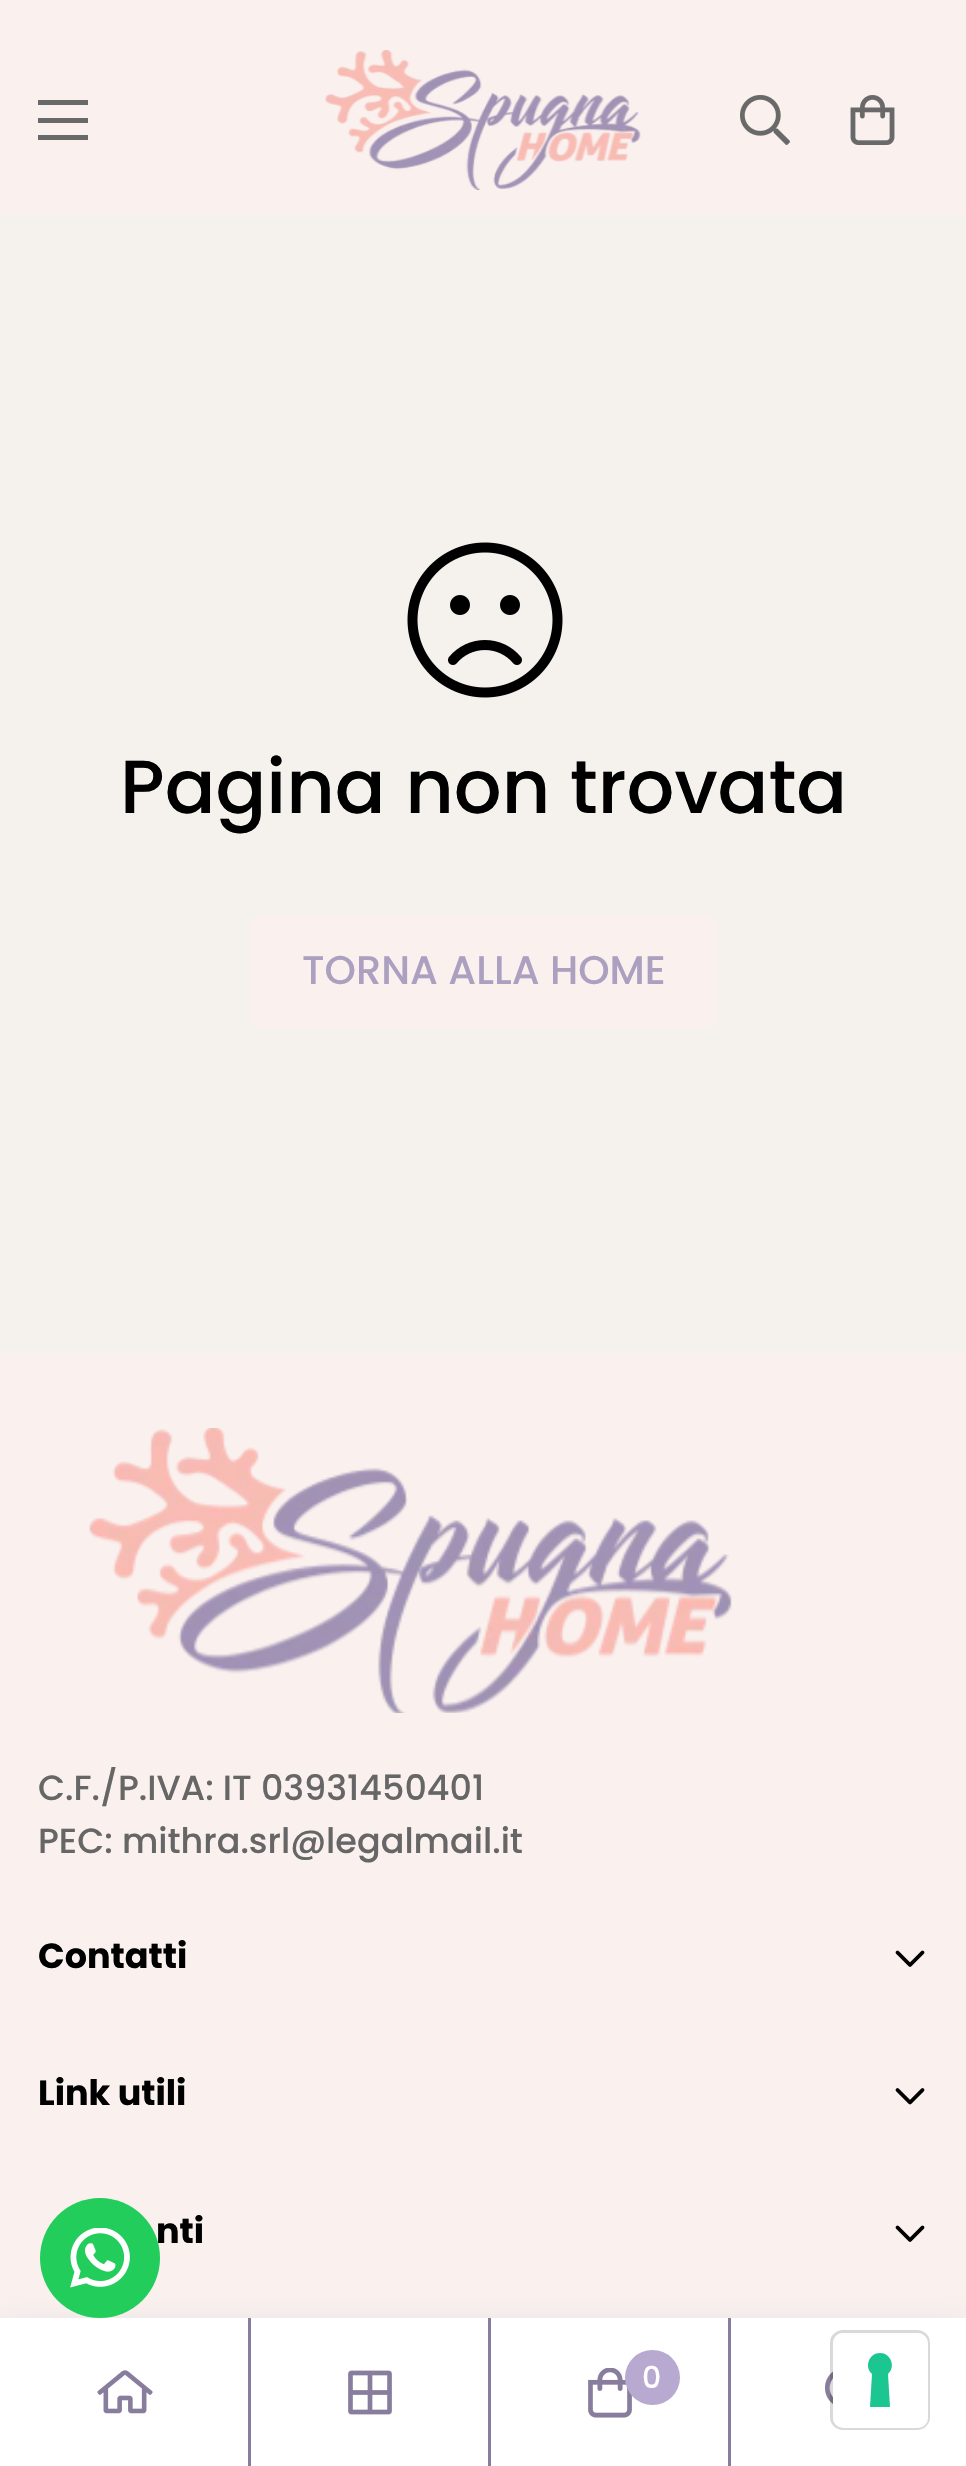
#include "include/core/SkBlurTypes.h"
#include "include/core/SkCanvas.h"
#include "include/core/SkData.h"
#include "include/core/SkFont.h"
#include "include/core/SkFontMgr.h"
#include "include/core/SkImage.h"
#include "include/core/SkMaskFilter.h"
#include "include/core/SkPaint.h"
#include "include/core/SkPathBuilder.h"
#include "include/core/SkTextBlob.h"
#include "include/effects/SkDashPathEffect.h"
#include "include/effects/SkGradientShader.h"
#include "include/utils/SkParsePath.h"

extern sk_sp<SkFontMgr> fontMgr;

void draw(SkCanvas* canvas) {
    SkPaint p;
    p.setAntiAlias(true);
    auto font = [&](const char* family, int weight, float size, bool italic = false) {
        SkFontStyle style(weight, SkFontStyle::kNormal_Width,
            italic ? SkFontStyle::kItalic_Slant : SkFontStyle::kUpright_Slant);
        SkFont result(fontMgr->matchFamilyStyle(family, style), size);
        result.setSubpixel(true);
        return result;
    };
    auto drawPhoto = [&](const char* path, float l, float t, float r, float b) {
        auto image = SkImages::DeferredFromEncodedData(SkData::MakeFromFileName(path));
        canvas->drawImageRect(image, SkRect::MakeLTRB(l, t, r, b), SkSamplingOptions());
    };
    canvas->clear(0xFFF5F1ED);
    {
        const struct { float l, t, r, b; SkColor color; } items[] = {
            {0, 0, 966, 215, 0xFFFAF1EF},
            {38, 118, 88, 123, 0xFF696969},
            {38, 100, 88, 105, 0xFF696969},
            {38, 135, 88, 140, 0xFF696969},
        };
        for (auto [l, t, r, b, color] : items) {
            p.setColor(color);
            canvas->drawRect(SkRect::MakeLTRB(l, t, r, b), p);
        }
    }
    drawPhoto("media/1.png", 325, 50, 641, 190);
    drawPhoto("media/2.png", 740, 95, 790, 145);
    drawPhoto("media/3.png", 850, 95, 895, 145);
    drawPhoto("media/4.png", 407, 542, 563, 698);
    auto font1 = font("Poppins", 500, 75);
    p.setColor(0xFF000000);
    canvas->drawString("Pagina non trovata", 120, 813, font1, p);
    p.setColor(0xFFFAF1EF);
    canvas->drawRoundRect(SkRect::MakeLTRB(250, 915, 718, 1028), 13, 13, p);
    auto font2 = font("Poppins", 500, 40);
    p.setColor(0xFFACA0C1);
    canvas->drawString("TORNA ALLA HOME", 302, 984, font2, p);
    p.setColor(0xFFFAF1EF);
    canvas->drawRect(SkRect::MakeLTRB(0, 1353, 966, 2318), p);
    drawPhoto("media/5.png", 89, 1428, 732, 1713);
    auto font3 = font("Poppins", 500, 35);
    p.setColor(0xFF666666);
    canvas->drawString("C.F./P.IVA: IT 03931450401", 38, 1800, font3, p);
    canvas->drawString("PEC: mithra.srl@legalmail.it", 38, 1853, font3, p);
    auto font4 = font("Poppins", 700, 35);
    p.setColor(0xFF000000);
    canvas->drawString("Contatti", 38, 1968, font4, p);
    drawPhoto("media/6.png", 895, 1950, 925, 1967);
    canvas->drawString("Link utili", 38, 2105, font4, p);
    drawPhoto("media/7.png", 895, 2088, 925, 2105);
    canvas->drawString("nti", 156, 2243, font4, p);
    drawPhoto("media/6.png", 895, 2225, 925, 2242);
    p.setColor(0x1F887D9C);
    p.setMaskFilter(SkMaskFilter::MakeBlur(kNormal_SkBlurStyle, 12.5f));
    canvas->drawRect(SkRect::MakeLTRB(0, 2318, 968, 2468), p);
    p.setMaskFilter(nullptr);
    p.setColor(0xFF22CD5B);
    canvas->drawCircle(100, 2258, 60, p);
    drawPhoto("media/8.png", 70, 2228, 130, 2288);
    p.setColor(0xFFFFFFFF);
    canvas->drawRect(SkRect::MakeLTRB(0, 2318, 966, 2466), p);
    p.setColor(0xFF887D9C);
    canvas->drawRect(SkRect::MakeLTRB(248, 2318, 251, 2466), p);
    drawPhoto("media/9.png", 97, 2370, 153, 2414);
    canvas->drawRect(SkRect::MakeLTRB(488, 2318, 491, 2466), p);
    drawPhoto("media/10.png", 348, 2370, 392, 2415);
    canvas->drawRect(SkRect::MakeLTRB(728, 2318, 731, 2466), p);
    drawPhoto("media/11.png", 588, 2368, 632, 2418);
    p.setColor(0xFFB7A9CF);
    canvas->drawCircle(652.5f, 2377.5f, 27.5f, p);
    auto font5 = font("Poppins", 500, 30);
    p.setColor(0xFFFFFFFF);
    canvas->drawString("0", 642, 2388, font5, p);
    drawPhoto("media/12.png", 825, 2371, 833, 2404);
    p.setStyle(SkPaint::kStroke_Style);
    p.setStrokeWidth(3);
    p.setColor(0x26000000);
    canvas->drawRoundRect(SkRect::MakeLTRB(831.5f, 2331.5f, 928.5f, 2428.5f), 11.5f, 11.5f, p);
    p.setStyle(SkPaint::kFill_Style);
    p.setColor(0xFFFFFFFF);
    canvas->drawRoundRect(SkRect::MakeLTRB(833, 2333, 928, 2428), 10, 10, p);
    p.setColor(0xFF1CC691);
    canvas->drawPath(SkPathBuilder(SkPathFillType::kEvenOdd).moveTo(880, 2353).cubicTo(891, 2353, 896, 2367, 888, 2374).lineTo(890, 2407).lineTo(870, 2407).lineTo(872, 2374).cubicTo(864, 2367, 869, 2353, 880, 2353).close().detach(), p);
}
